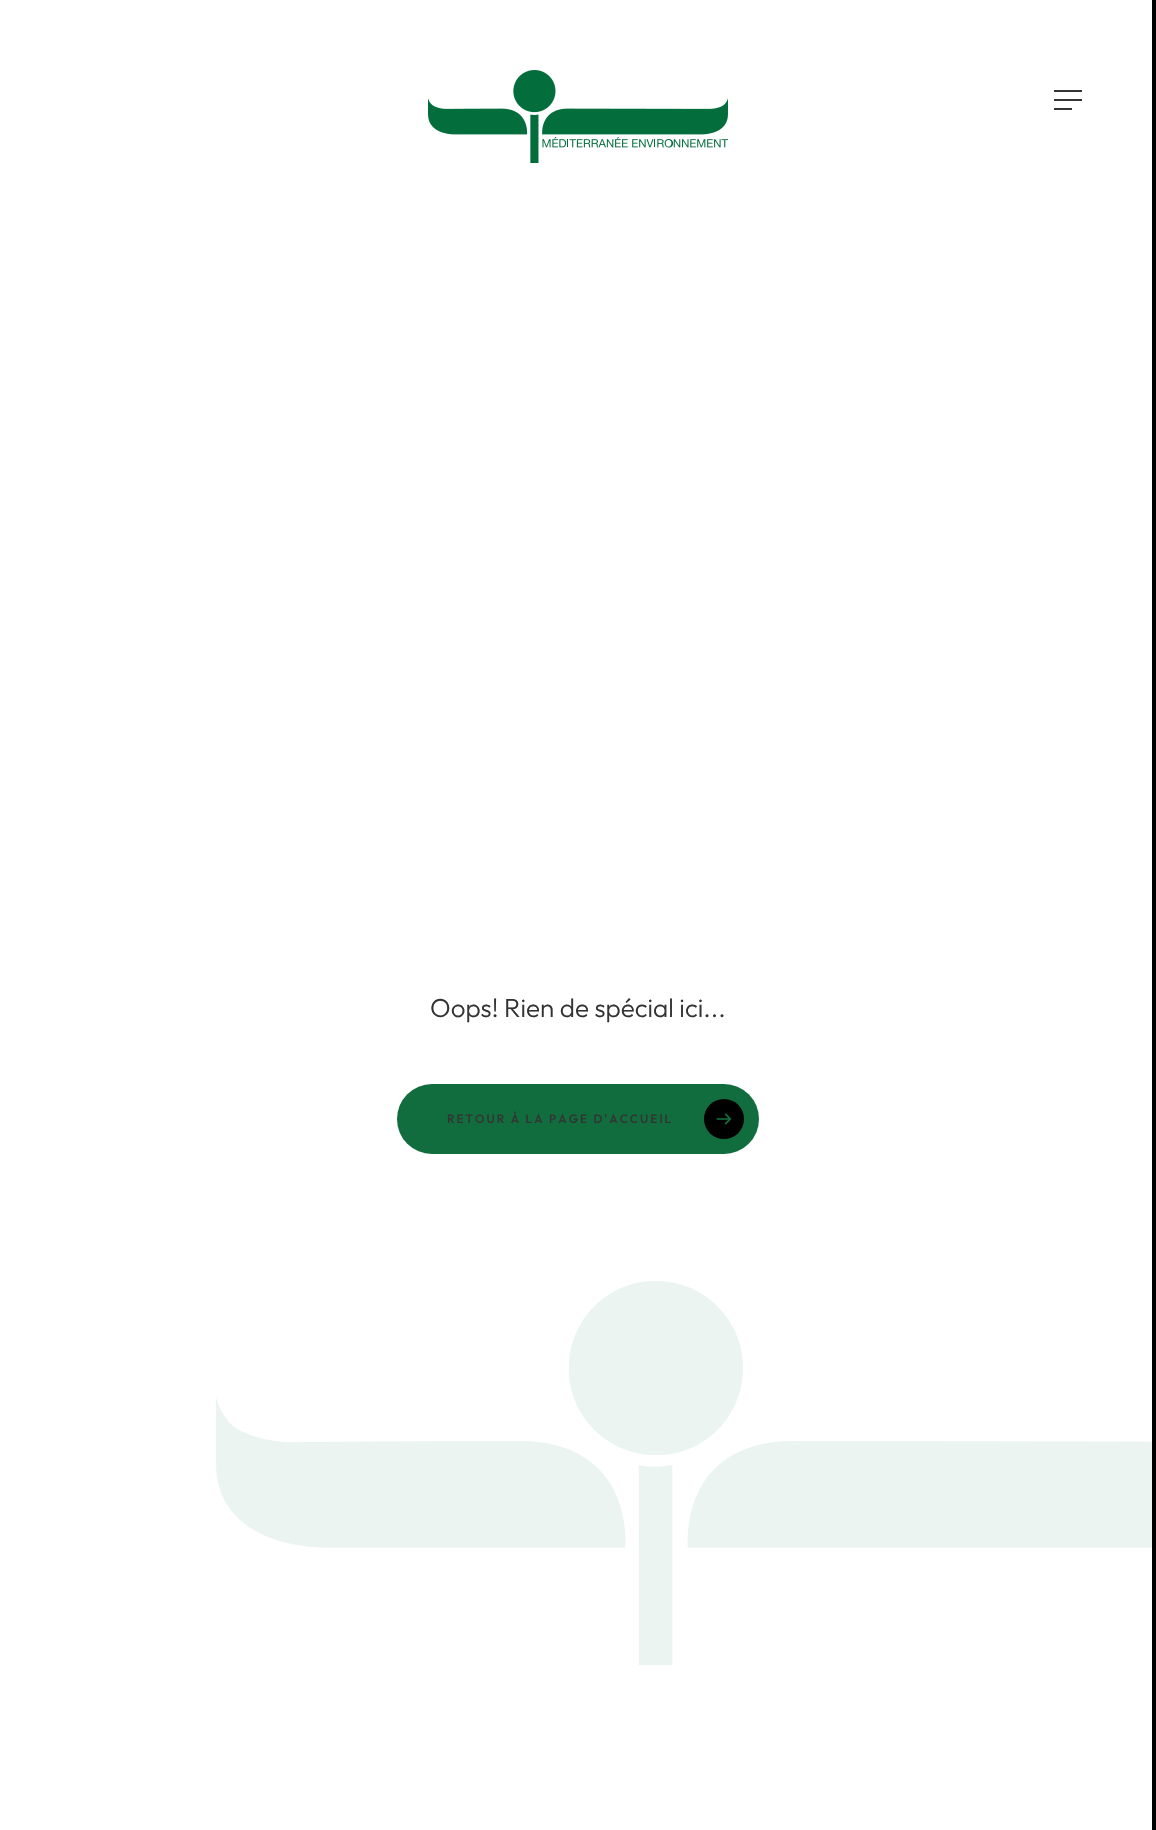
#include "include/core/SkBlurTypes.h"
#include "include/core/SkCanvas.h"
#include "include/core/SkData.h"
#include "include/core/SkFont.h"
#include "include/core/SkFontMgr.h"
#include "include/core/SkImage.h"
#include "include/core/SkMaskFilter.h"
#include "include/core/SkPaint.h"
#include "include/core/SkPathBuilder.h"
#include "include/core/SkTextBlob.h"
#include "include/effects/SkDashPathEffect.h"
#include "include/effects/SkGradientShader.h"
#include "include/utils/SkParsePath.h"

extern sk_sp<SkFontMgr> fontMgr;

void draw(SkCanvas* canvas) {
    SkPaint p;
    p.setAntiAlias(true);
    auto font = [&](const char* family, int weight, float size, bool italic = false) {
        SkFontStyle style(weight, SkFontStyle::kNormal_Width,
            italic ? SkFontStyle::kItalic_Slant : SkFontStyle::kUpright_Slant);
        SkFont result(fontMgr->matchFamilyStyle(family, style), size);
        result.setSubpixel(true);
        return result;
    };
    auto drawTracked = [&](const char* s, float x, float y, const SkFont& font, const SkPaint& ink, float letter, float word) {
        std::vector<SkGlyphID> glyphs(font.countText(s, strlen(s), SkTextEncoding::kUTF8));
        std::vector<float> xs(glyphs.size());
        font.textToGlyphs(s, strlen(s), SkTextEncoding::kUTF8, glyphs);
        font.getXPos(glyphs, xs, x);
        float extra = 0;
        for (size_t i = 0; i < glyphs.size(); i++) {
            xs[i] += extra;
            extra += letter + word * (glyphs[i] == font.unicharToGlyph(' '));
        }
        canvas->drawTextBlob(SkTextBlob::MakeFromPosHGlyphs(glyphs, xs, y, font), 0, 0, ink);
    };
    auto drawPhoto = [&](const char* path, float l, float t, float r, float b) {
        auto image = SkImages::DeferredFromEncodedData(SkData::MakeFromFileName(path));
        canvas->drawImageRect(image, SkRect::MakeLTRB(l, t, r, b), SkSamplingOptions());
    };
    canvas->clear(0xFFFFFFFF);
    drawPhoto("media/1.png", 428, 70, 728, 163);
    {
        const struct { float l, t, r, b; SkColor color; } items[] = {
            {1054, 99, 1082, 101, 0xFF343434},
            {1054, 90, 1082, 92, 0xFF343434},
            {1054, 108, 1072, 110, 0xFF343434},
            {1152, 0, 1156, 1830, 0xFF000000},
        };
        for (auto [l, t, r, b, color] : items) {
            p.setColor(color);
            canvas->drawRect(SkRect::MakeLTRB(l, t, r, b), p);
        }
    }
    drawPhoto("media/2.png", 216, 1281, 1152, 1665);
    auto font1 = font("Outfit", 300, 26);
    p.setColor(0xFF333333);
    canvas->drawString("Oops! Rien de spécial ici...", 430, 1017, font1, p);
    p.setColor(0xFF116C3E);
    canvas->drawRoundRect(SkRect::MakeLTRB(397, 1084, 759, 1154), 35, 35, p);
    auto font2 = font("Outfit", 500, 12);
    p.setColor(0xFF333333);
    drawTracked("RETOUR À LA PAGE D'ACCUEIL", 447, 1123, font2, p, 2, 0);
    p.setColor(0xFF000000);
    canvas->drawCircle(724, 1119, 20, p);
    drawPhoto("media/3.png", 716, 1113, 732, 1125);
}
